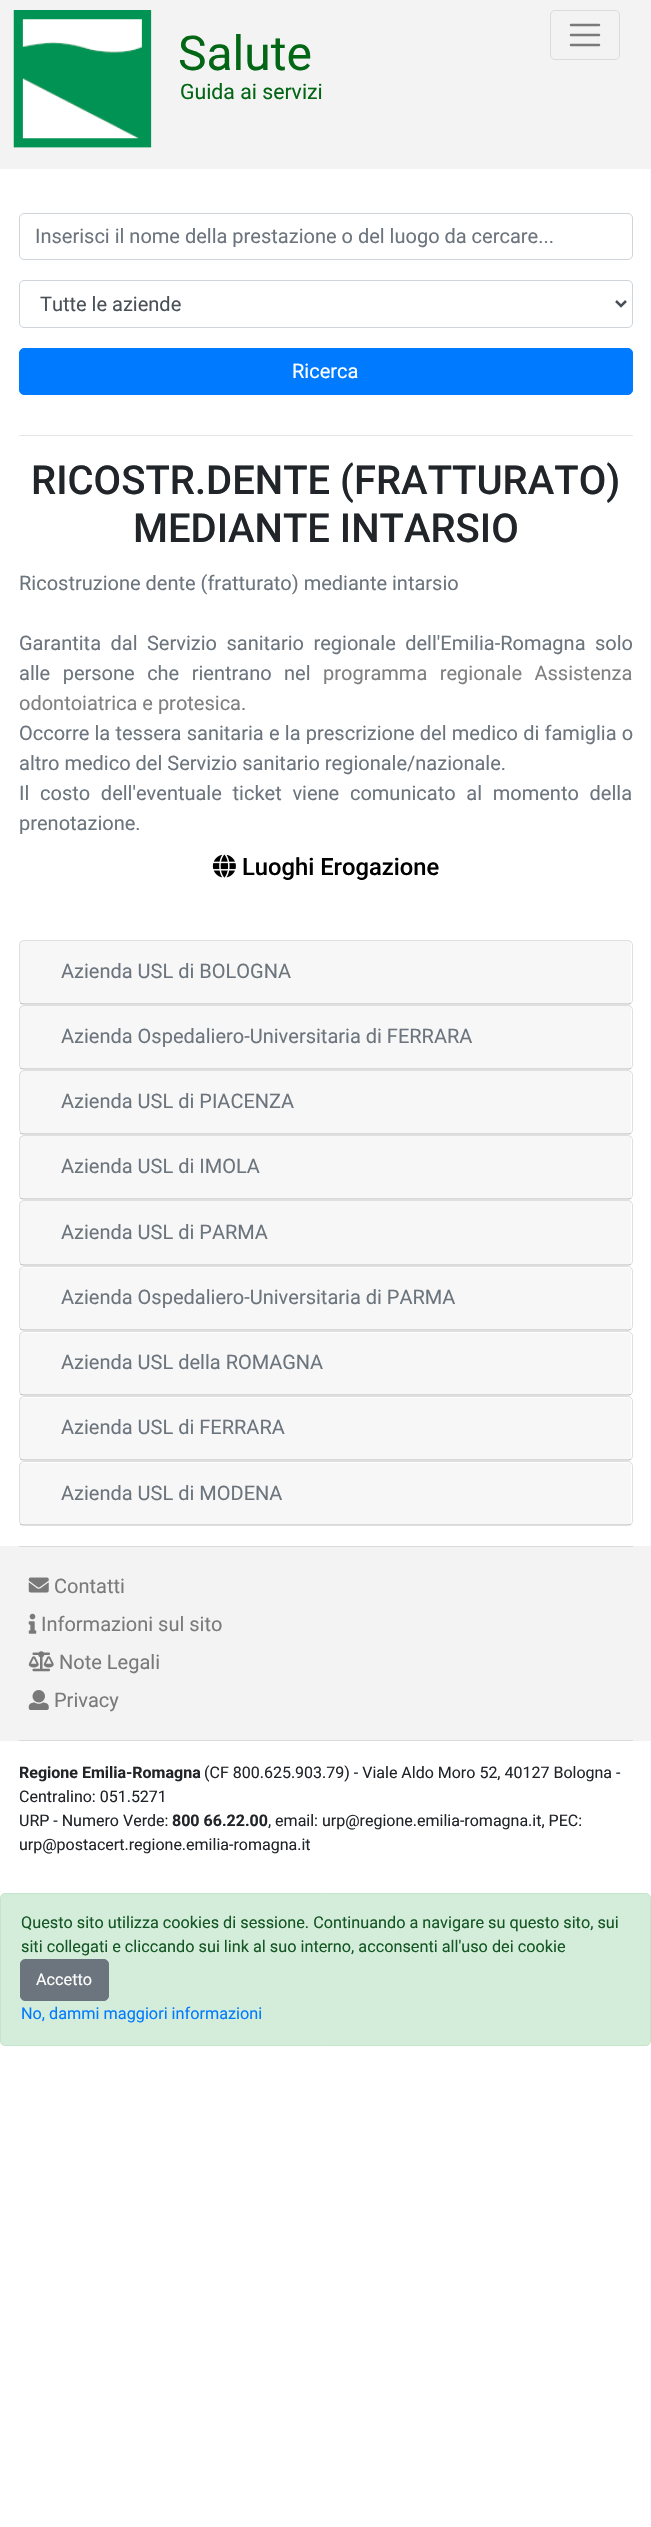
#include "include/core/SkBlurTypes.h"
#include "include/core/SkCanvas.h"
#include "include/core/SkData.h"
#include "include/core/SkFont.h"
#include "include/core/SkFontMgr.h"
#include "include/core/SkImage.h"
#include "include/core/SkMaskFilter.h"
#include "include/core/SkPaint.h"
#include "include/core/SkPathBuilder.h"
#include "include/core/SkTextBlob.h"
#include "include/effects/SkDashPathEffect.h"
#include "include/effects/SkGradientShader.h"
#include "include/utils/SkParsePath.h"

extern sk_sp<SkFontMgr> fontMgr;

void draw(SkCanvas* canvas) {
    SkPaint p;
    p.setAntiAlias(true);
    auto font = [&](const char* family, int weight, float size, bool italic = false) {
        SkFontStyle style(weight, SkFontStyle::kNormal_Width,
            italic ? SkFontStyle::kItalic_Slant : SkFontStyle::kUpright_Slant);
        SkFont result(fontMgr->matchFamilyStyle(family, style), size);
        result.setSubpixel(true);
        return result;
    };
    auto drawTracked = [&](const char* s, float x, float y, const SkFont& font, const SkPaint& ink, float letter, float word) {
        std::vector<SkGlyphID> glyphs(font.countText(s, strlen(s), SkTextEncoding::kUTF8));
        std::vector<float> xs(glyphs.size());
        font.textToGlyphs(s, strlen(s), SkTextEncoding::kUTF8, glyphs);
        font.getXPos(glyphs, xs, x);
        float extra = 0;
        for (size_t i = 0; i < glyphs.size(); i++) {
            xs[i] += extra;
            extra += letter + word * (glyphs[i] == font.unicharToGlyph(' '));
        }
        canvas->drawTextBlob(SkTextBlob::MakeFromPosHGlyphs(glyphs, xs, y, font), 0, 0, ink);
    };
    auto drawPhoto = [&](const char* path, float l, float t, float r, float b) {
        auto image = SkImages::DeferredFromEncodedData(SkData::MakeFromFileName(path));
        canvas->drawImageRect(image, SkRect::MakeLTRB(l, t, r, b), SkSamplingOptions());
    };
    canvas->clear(0xFFFFFFFF);
    p.setColor(0xFFF3F3F3);
    canvas->drawRect(SkRect::MakeLTRB(0, 0, 651, 169), p);
    drawPhoto("media/1.png", 13, 10, 152, 148);
    auto font1 = font("Roboto", 400, 48);
    p.setColor(0xFF036615);
    canvas->drawString("Salute", 178, 70, font1, p);
    auto font2 = font("Roboto", 400, 21.25f);
    canvas->drawString("Guida ai servizi", 180, 99, font2, p);
    p.setStyle(SkPaint::kStroke_Style);
    p.setStrokeWidth(1);
    p.setColor(0xFFDBDBDB);
    canvas->drawRoundRect(SkRect::MakeLTRB(550.5f, 10.5f, 619.5f, 59.5f), 4.5f, 4.5f, p);
    p.setStrokeWidth(2.5f);
    p.setStrokeCap(SkPaint::kRound_Cap);
    p.setColor(0xFF7A7A7A);
    canvas->drawPath(SkPathBuilder().moveTo(571, 25).lineTo(599, 25).moveTo(571, 35).lineTo(599, 35).moveTo(571, 45).lineTo(599, 45).detach(), p);
    p.setStrokeWidth(1);
    p.setStrokeCap(SkPaint::kButt_Cap);
    p.setColor(0xFFCED4DA);
    canvas->drawRoundRect(SkRect::MakeLTRB(19.5f, 213.5f, 632.5f, 259.5f), 4.5f, 4.5f, p);
    auto font3 = font("Roboto", 400, 20);
    p.setStyle(SkPaint::kFill_Style);
    p.setColor(0xFF6C757D);
    canvas->drawString("Inserisci il nome della prestazione o del luogo da cercare...", 35, 243, font3, p);
    p.setStyle(SkPaint::kStroke_Style);
    p.setColor(0xFFCED4DA);
    canvas->drawRoundRect(SkRect::MakeLTRB(19.5f, 280.5f, 632.5f, 327.5f), 4.5f, 4.5f, p);
    p.setStrokeWidth(2.5f);
    p.setColor(0xFF495057);
    canvas->drawPath(SkPathBuilder().moveTo(616, 301).lineTo(621, 306).lineTo(626, 301).detach(), p);
    p.setStyle(SkPaint::kFill_Style);
    canvas->drawString("Tutte le aziende", 40, 311, font3, p);
    p.setColor(0xFF007BFF);
    canvas->drawRoundRect(SkRect::MakeLTRB(19.5f, 348.5f, 632.5f, 394.5f), 4.5f, 4.5f, p);
    p.setStyle(SkPaint::kStroke_Style);
    p.setStrokeWidth(1);
    canvas->drawRoundRect(SkRect::MakeLTRB(19.5f, 348.5f, 632.5f, 394.5f), 4.5f, 4.5f, p);
    p.setStyle(SkPaint::kFill_Style);
    p.setColor(0xFFFFFFFF);
    canvas->drawString("Ricerca", 292, 378, font3, p);
    p.setColor(0xFFE6E6E6);
    canvas->drawRect(SkRect::MakeLTRB(19, 435, 633, 436), p);
    auto font4 = font("Roboto", 500, 40);
    p.setColor(0xFF212529);
    canvas->drawString("RICOSTR.DENTE (FRATTURATO)", 31, 494, font4, p);
    canvas->drawString("MEDIANTE INTARSIO", 133, 542, font4, p);
    p.setColor(0xFF6C757D);
    canvas->drawString("Ricostruzione dente (fratturato) mediante intarsio", 19, 590, font3, p);
    drawTracked("Garantita dal Servizio sanitario regionale dell'Emilia-Romagna solo", 19, 650, font3, p, 0, 4.5f);
    drawTracked("alle persone che rientrano nel", 19, 680, font3, p, 0, 7.5f);
    p.setColor(0xFF808080);
    drawTracked("programma regionale Assistenza", 323, 680, font3, p, 0, 7.5f);
    canvas->drawString("odontoiatrica e protesica", 19, 710, font3, p);
    p.setColor(0xFF6C757D);
    canvas->drawString(".", 241, 710, font3, p);
    drawTracked("Occorre la tessera sanitaria e la prescrizione del medico di famiglia o", 19, 740, font3, p, 0, 0.25f);
    canvas->drawString("altro medico del Servizio sanitario regionale/nazionale.", 19, 770, font3, p);
    drawTracked("Il costo dell'eventuale ticket viene comunicato al momento della", 19, 800, font3, p, 0, 5.75f);
    canvas->drawString("prenotazione.", 19, 830, font3, p);
    drawPhoto("media/2.png", 212, 854, 236, 878);
    auto font5 = font("Roboto", 500, 23.75f);
    p.setColor(0xFF000000);
    canvas->drawString("Luoghi Erogazione", 242, 875, font5, p);
    p.setStyle(SkPaint::kStroke_Style);
    p.setColor(0xFFDFDFDF);
    canvas->drawRoundRect(SkRect::MakeLTRB(19.5f, 940.5f, 632.5f, 1004.5f), 4.5f, 4.5f, p);
    p.setStyle(SkPaint::kFill_Style);
    p.setColor(0x08000000);
    canvas->drawRect(SkRect::MakeLTRB(20, 941, 631, 1004), p);
    p.setColor(0x1F000000);
    canvas->drawRect(SkRect::MakeLTRB(20, 1003, 631, 1004), p);
    p.setColor(0xFF6C757D);
    canvas->drawString("Azienda USL di BOLOGNA", 61, 978, font3, p);
    p.setStyle(SkPaint::kStroke_Style);
    p.setColor(0xFFDFDFDF);
    canvas->drawRoundRect(SkRect::MakeLTRB(19.5f, 1005.5f, 632.5f, 1069.5f), 4.5f, 4.5f, p);
    p.setStyle(SkPaint::kFill_Style);
    p.setColor(0x08000000);
    canvas->drawRect(SkRect::MakeLTRB(20, 1006, 631, 1069), p);
    p.setColor(0x1F000000);
    canvas->drawRect(SkRect::MakeLTRB(20, 1068, 631, 1069), p);
    p.setColor(0xFF6C757D);
    canvas->drawString("Azienda Ospedaliero-Universitaria di FERRARA", 61, 1043, font3, p);
    p.setStyle(SkPaint::kStroke_Style);
    p.setColor(0xFFDFDFDF);
    canvas->drawRoundRect(SkRect::MakeLTRB(19.5f, 1070.5f, 632.5f, 1134.5f), 4.5f, 4.5f, p);
    p.setStyle(SkPaint::kFill_Style);
    p.setColor(0x08000000);
    canvas->drawRect(SkRect::MakeLTRB(20, 1071, 631, 1134), p);
    p.setColor(0x1F000000);
    canvas->drawRect(SkRect::MakeLTRB(20, 1133, 631, 1134), p);
    p.setColor(0xFF6C757D);
    canvas->drawString("Azienda USL di PIACENZA", 61, 1108, font3, p);
    p.setStyle(SkPaint::kStroke_Style);
    p.setColor(0xFFDFDFDF);
    canvas->drawRoundRect(SkRect::MakeLTRB(19.5f, 1135.5f, 632.5f, 1199.5f), 4.5f, 4.5f, p);
    p.setStyle(SkPaint::kFill_Style);
    p.setColor(0x08000000);
    canvas->drawRect(SkRect::MakeLTRB(20, 1136, 631, 1199), p);
    p.setColor(0x1F000000);
    canvas->drawRect(SkRect::MakeLTRB(20, 1198, 631, 1199), p);
    p.setColor(0xFF6C757D);
    canvas->drawString("Azienda USL di IMOLA", 61, 1173, font3, p);
    p.setStyle(SkPaint::kStroke_Style);
    p.setColor(0xFFDFDFDF);
    canvas->drawRoundRect(SkRect::MakeLTRB(19.5f, 1200.5f, 632.5f, 1265.5f), 4.5f, 4.5f, p);
    p.setStyle(SkPaint::kFill_Style);
    p.setColor(0x08000000);
    canvas->drawRect(SkRect::MakeLTRB(20, 1201, 631, 1265), p);
    p.setColor(0x1F000000);
    canvas->drawRect(SkRect::MakeLTRB(20, 1264, 631, 1265), p);
    p.setColor(0xFF6C757D);
    canvas->drawString("Azienda USL di PARMA", 61, 1239, font3, p);
    p.setStyle(SkPaint::kStroke_Style);
    p.setColor(0xFFDFDFDF);
    canvas->drawRoundRect(SkRect::MakeLTRB(19.5f, 1266.5f, 632.5f, 1330.5f), 4.5f, 4.5f, p);
    p.setStyle(SkPaint::kFill_Style);
    p.setColor(0x08000000);
    canvas->drawRect(SkRect::MakeLTRB(20, 1268, 631, 1330), p);
    p.setColor(0x1F000000);
    canvas->drawRect(SkRect::MakeLTRB(20, 1329, 631, 1330), p);
    p.setColor(0xFF6C757D);
    canvas->drawString("Azienda Ospedaliero-Universitaria di PARMA", 61, 1304, font3, p);
    p.setStyle(SkPaint::kStroke_Style);
    p.setColor(0xFFDFDFDF);
    canvas->drawRoundRect(SkRect::MakeLTRB(19.5f, 1331.5f, 632.5f, 1395.5f), 4.5f, 4.5f, p);
    p.setStyle(SkPaint::kFill_Style);
    p.setColor(0x08000000);
    canvas->drawRect(SkRect::MakeLTRB(20, 1333, 631, 1395), p);
    p.setColor(0x1F000000);
    canvas->drawRect(SkRect::MakeLTRB(20, 1394, 631, 1395), p);
    p.setColor(0xFF6C757D);
    canvas->drawString("Azienda USL della ROMAGNA", 61, 1369, font3, p);
    p.setStyle(SkPaint::kStroke_Style);
    p.setColor(0xFFDFDFDF);
    canvas->drawRoundRect(SkRect::MakeLTRB(19.5f, 1396.5f, 632.5f, 1460.5f), 4.5f, 4.5f, p);
    p.setStyle(SkPaint::kFill_Style);
    p.setColor(0x08000000);
    canvas->drawRect(SkRect::MakeLTRB(20, 1398, 631, 1460), p);
    p.setColor(0x1F000000);
    canvas->drawRect(SkRect::MakeLTRB(20, 1459, 631, 1460), p);
    p.setColor(0xFF6C757D);
    canvas->drawString("Azienda USL di FERRARA", 61, 1434, font3, p);
    p.setStyle(SkPaint::kStroke_Style);
    p.setColor(0xFFDFDFDF);
    canvas->drawRoundRect(SkRect::MakeLTRB(19.5f, 1461.5f, 632.5f, 1525.5f), 4.5f, 4.5f, p);
    p.setStyle(SkPaint::kFill_Style);
    p.setColor(0x08000000);
    canvas->drawRect(SkRect::MakeLTRB(20, 1463, 631, 1525), p);
    p.setColor(0x1F000000);
    canvas->drawRect(SkRect::MakeLTRB(20, 1524, 631, 1525), p);
    p.setColor(0xFF6C757D);
    canvas->drawString("Azienda USL di MODENA", 61, 1500, font3, p);
    p.setColor(0xFFF3F3F3);
    canvas->drawRect(SkRect::MakeLTRB(0, 1546, 651, 1741), p);
    p.setColor(0xFFDBDBDB);
    canvas->drawRect(SkRect::MakeLTRB(19, 1546, 633, 1547), p);
    drawPhoto("media/3.png", 28, 1577, 49, 1593);
    p.setColor(0xFF7A7A7A);
    canvas->drawString("Contatti", 54, 1593, font3, p);
    drawPhoto("media/4.png", 28, 1613, 37, 1634);
    canvas->drawString("Informazioni sul sito", 41, 1631, font3, p);
    drawPhoto("media/5.png", 28, 1651, 54, 1672);
    canvas->drawString("Note Legali", 59, 1669, font3, p);
    drawPhoto("media/6.png", 28, 1690, 49, 1710);
    canvas->drawString("Privacy", 54, 1707, font3, p);
    p.setColor(0xFFDBDBDB);
    canvas->drawRect(SkRect::MakeLTRB(19, 1740, 633, 1741), p);
    auto font6 = font("Roboto", 700, 16);
    p.setColor(0xFF212529);
    canvas->drawString("Regione Emilia-Romagna", 19, 1778, font6, p);
    auto font7 = font("Roboto", 400, 16);
    {
        const struct { const char* s; float x, y; } items[] = {
            {"(CF 800.625.903.79) - Viale Aldo Moro 52, 40127 Bologna -", 204, 1778},
            {"Centralino: 051.5271", 19, 1802},
            {"URP - Numero Verde:", 19, 1826},
        };
        for (auto [s, x, y] : items) {
            canvas->drawString(s, x, y, font7, p);
        }
    }
    canvas->drawString("800 66.22.00", 172, 1826, font6, p);
    canvas->drawString(", email: urp@regione.emilia-romagna.it, PEC:", 268, 1826, font7, p);
    canvas->drawString("urp@postacert.regione.emilia-romagna.it", 19, 1850, font7, p);
    p.setColor(0xFFD4EDDA);
    canvas->drawRoundRect(SkRect::MakeLTRB(0.5f, 1893.5f, 650.5f, 2045.5f), 4.5f, 4.5f, p);
    p.setStyle(SkPaint::kStroke_Style);
    p.setColor(0xFFC3E6CB);
    canvas->drawRoundRect(SkRect::MakeLTRB(0.5f, 1893.5f, 650.5f, 2045.5f), 4.5f, 4.5f, p);
    auto font8 = font("Roboto", 400, 16.25f);
    p.setStyle(SkPaint::kFill_Style);
    p.setColor(0xFF155724);
    canvas->drawString("Questo sito utilizza cookies di sessione. Continuando a navigare su questo sito, sui", 21, 1928, font8, p);
    canvas->drawString("siti collegati e cliccando sui link al suo interno, acconsenti all'uso dei cookie", 21, 1952, font8, p);
    p.setColor(0xFF6C757D);
    canvas->drawRoundRect(SkRect::MakeLTRB(20.5f, 1959.5f, 108.5f, 2000.5f), 4.5f, 4.5f, p);
    p.setStyle(SkPaint::kStroke_Style);
    canvas->drawRoundRect(SkRect::MakeLTRB(20.5f, 1959.5f, 108.5f, 2000.5f), 4.5f, 4.5f, p);
    p.setStyle(SkPaint::kFill_Style);
    p.setColor(0xFFFFFFFF);
    canvas->drawString("Accetto", 36, 1985, font8, p);
    p.setColor(0xFF007BFF);
    canvas->drawString("No, dammi maggiori informazioni", 21, 2019, font8, p);
}
